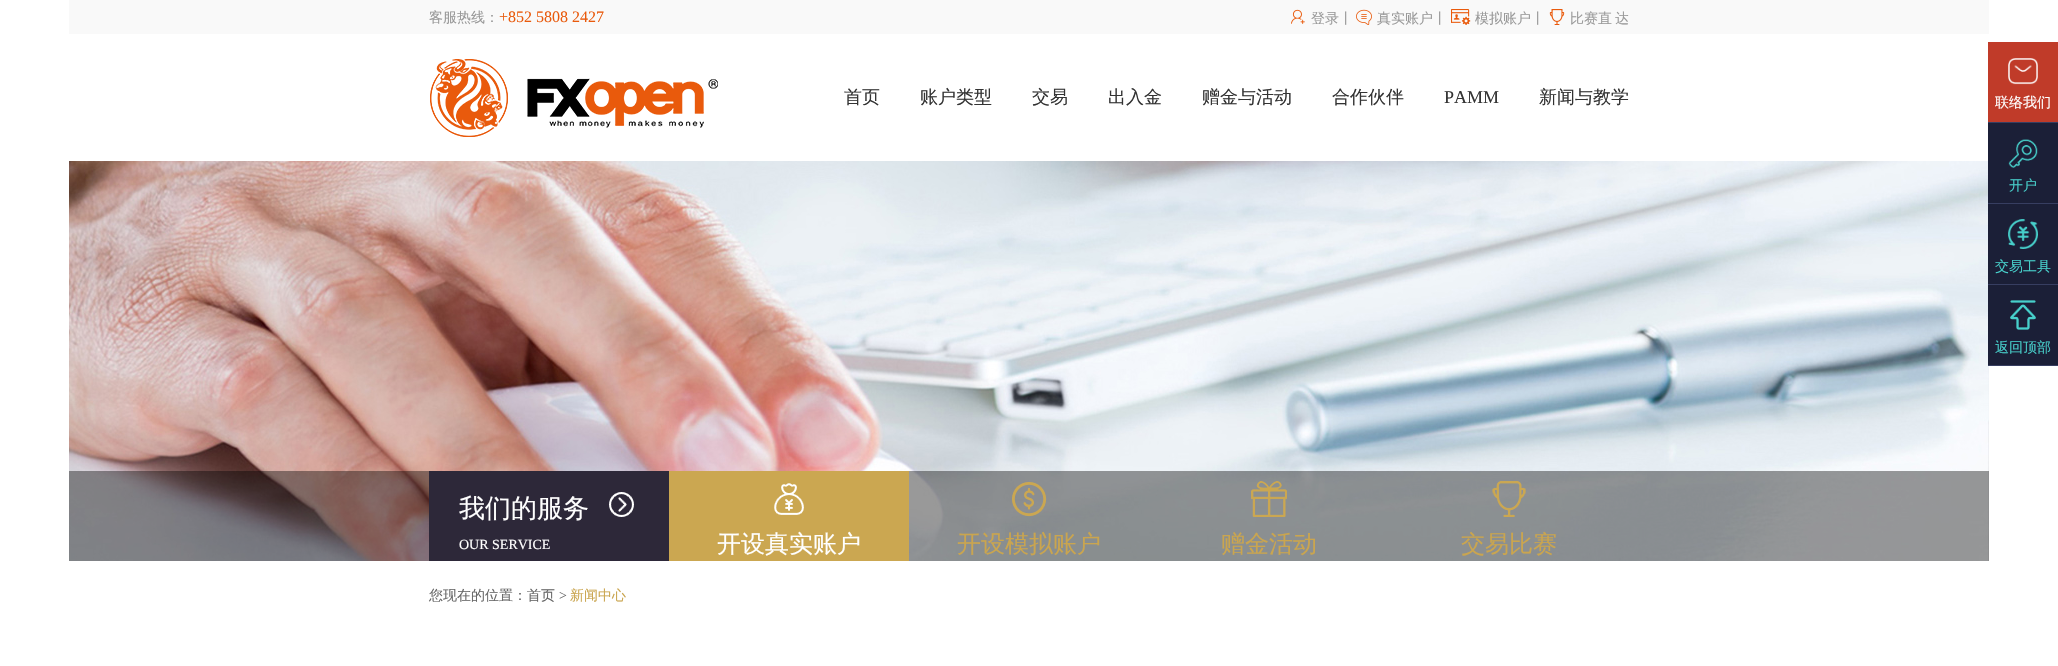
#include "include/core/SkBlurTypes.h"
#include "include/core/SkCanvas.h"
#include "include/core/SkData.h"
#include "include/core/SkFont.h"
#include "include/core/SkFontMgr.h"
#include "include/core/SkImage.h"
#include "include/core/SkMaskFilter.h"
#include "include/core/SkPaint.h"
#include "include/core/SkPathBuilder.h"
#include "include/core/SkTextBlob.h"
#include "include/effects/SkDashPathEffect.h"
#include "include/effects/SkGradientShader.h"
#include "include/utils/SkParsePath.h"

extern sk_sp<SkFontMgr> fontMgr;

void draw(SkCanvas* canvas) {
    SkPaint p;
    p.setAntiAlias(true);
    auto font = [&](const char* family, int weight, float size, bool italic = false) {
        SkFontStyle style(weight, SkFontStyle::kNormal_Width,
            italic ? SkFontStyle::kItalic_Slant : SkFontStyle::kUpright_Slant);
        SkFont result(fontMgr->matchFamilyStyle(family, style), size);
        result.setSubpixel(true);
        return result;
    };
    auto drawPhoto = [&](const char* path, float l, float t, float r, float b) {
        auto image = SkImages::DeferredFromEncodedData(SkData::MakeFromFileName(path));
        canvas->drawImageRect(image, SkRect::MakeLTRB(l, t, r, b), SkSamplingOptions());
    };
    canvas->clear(0xFFFFFFFF);
    p.setColor(0xFFF9F9F9);
    canvas->drawRect(SkRect::MakeLTRB(69, 0, 1989, 34), p);
    auto font1 = font("WenQuanYi Zen Hei", 500, 14);
    p.setColor(0xFF999999);
    canvas->drawString("客服热线：", 429, 22, font1, p);
    auto font2 = font("Liberation Serif", 400, 16);
    p.setColor(0xFFE95A0C);
    canvas->drawString("+852 5808 2427", 499, 22, font2, p);
    drawPhoto("media/1.png", 1291, 9, 1305, 24);
    p.setColor(0xFF999999);
    canvas->drawString("登录丨", 1311, 23, font1, p);
    drawPhoto("media/2.png", 1356, 9, 1372, 25);
    canvas->drawString("真实账户丨", 1377, 23, font1, p);
    drawPhoto("media/3.png", 1451, 9, 1471, 25);
    canvas->drawString("模拟账户丨", 1475, 23, font1, p);
    drawPhoto("media/4.png", 1549, 9, 1565, 25);
    canvas->drawString("比赛直", 1570, 23, font1, p);
    canvas->drawString("达", 1615, 23, font1, p);
    drawPhoto("media/5.png", 430, 59, 718, 137);
    auto font3 = font("WenQuanYi Zen Hei", 500, 18);
    p.setColor(0xFF333333);
    {
        const struct { const char* s; float x, y; } items[] = {
            {"首页", 844, 103},
            {"账户类型", 920, 103},
            {"交易", 1032, 103},
            {"出入金", 1108, 103},
            {"赠金与活动", 1202, 103},
            {"合作伙伴", 1332, 103},
        };
        for (auto [s, x, y] : items) {
            canvas->drawString(s, x, y, font3, p);
        }
    }
    auto font4 = font("Liberation Serif", 400, 18);
    canvas->drawString("PAMM", 1444, 103, font4, p);
    canvas->drawString("新闻与教学", 1539, 103, font3, p);
    p.setColor(0xFFC03B29);
    canvas->drawRect(SkRect::MakeLTRB(1988, 42, 2058, 122), p);
    p.setColor(0xFF373E61);
    canvas->drawRect(SkRect::MakeLTRB(1988, 122, 2058, 123), p);
    drawPhoto("media/6.png", 2008, 58, 2038, 85);
    p.setColor(0xFFFFFFFF);
    canvas->drawString("联络我们", 1995, 107, font1, p);
    drawPhoto("media/10.png", 69, 161, 1989, 561);
    p.setColor(0xFF1B1F37);
    canvas->drawRect(SkRect::MakeLTRB(1988, 123, 2058, 203), p);
    p.setColor(0xFF373E61);
    canvas->drawRect(SkRect::MakeLTRB(1988, 203, 2058, 204), p);
    drawPhoto("media/7.png", 2008, 139, 2038, 168);
    p.setColor(0xFF47D0CB);
    canvas->drawString("开户", 2009, 190, font1, p);
    p.setColor(0xFF1B1F37);
    canvas->drawRect(SkRect::MakeLTRB(1988, 204, 2058, 284), p);
    p.setColor(0xFF373E61);
    canvas->drawRect(SkRect::MakeLTRB(1988, 284, 2058, 285), p);
    drawPhoto("media/8.png", 2008, 219, 2038, 249);
    p.setColor(0xFF47D0CB);
    canvas->drawString("交易工具", 1995, 271, font1, p);
    p.setColor(0xFF1B1F37);
    canvas->drawRect(SkRect::MakeLTRB(1988, 285, 2058, 365), p);
    p.setColor(0xFF373E61);
    canvas->drawRect(SkRect::MakeLTRB(1988, 365, 2058, 366), p);
    drawPhoto("media/9.png", 2010, 300, 2036, 330);
    p.setColor(0xFF47D0CB);
    canvas->drawString("返回顶部", 1995, 352, font1, p);
    p.setColor(0x66000000);
    canvas->drawRect(SkRect::MakeLTRB(69, 471, 1989, 561), p);
    p.setColor(0xFF2D2839);
    canvas->drawRect(SkRect::MakeLTRB(429, 471, 669, 561), p);
    auto font5 = font("WenQuanYi Zen Hei", 500, 26);
    p.setColor(0xFFFFFFFF);
    canvas->drawString("我们的服务", 459, 517, font5, p);
    drawPhoto("media/11.png", 609, 492, 634, 517);
    auto font6 = font("Liberation Serif", 400, 14);
    canvas->drawString("OUR SERVICE", 459, 549, font6, p);
    p.setColor(0xFFCBA751);
    canvas->drawRect(SkRect::MakeLTRB(669, 471, 909, 561), p);
    drawPhoto("media/12.png", 774, 483, 804, 515);
    auto font7 = font("WenQuanYi Zen Hei", 500, 24);
    p.setColor(0xFFFFFFFF);
    canvas->drawString("开设真实账户", 717, 552, font7, p);
    drawPhoto("media/13.png", 1012, 482, 1047, 517);
    p.setColor(0xFFCAA54F);
    canvas->drawString("开设模拟账户", 957, 552, font7, p);
    drawPhoto("media/14.png", 1251, 481, 1287, 517);
    canvas->drawString("赠金活动", 1221, 552, font7, p);
    drawPhoto("media/15.png", 1492, 481, 1526, 517);
    canvas->drawString("交易比赛", 1461, 552, font7, p);
    p.setColor(0xFF666666);
    canvas->drawString("您现在的位置：首页", 429, 600, font1, p);
    canvas->drawString(">", 559, 600, font6, p);
    p.setColor(0xFFCAA54F);
    canvas->drawString("新闻中心", 570, 600, font1, p);
}
